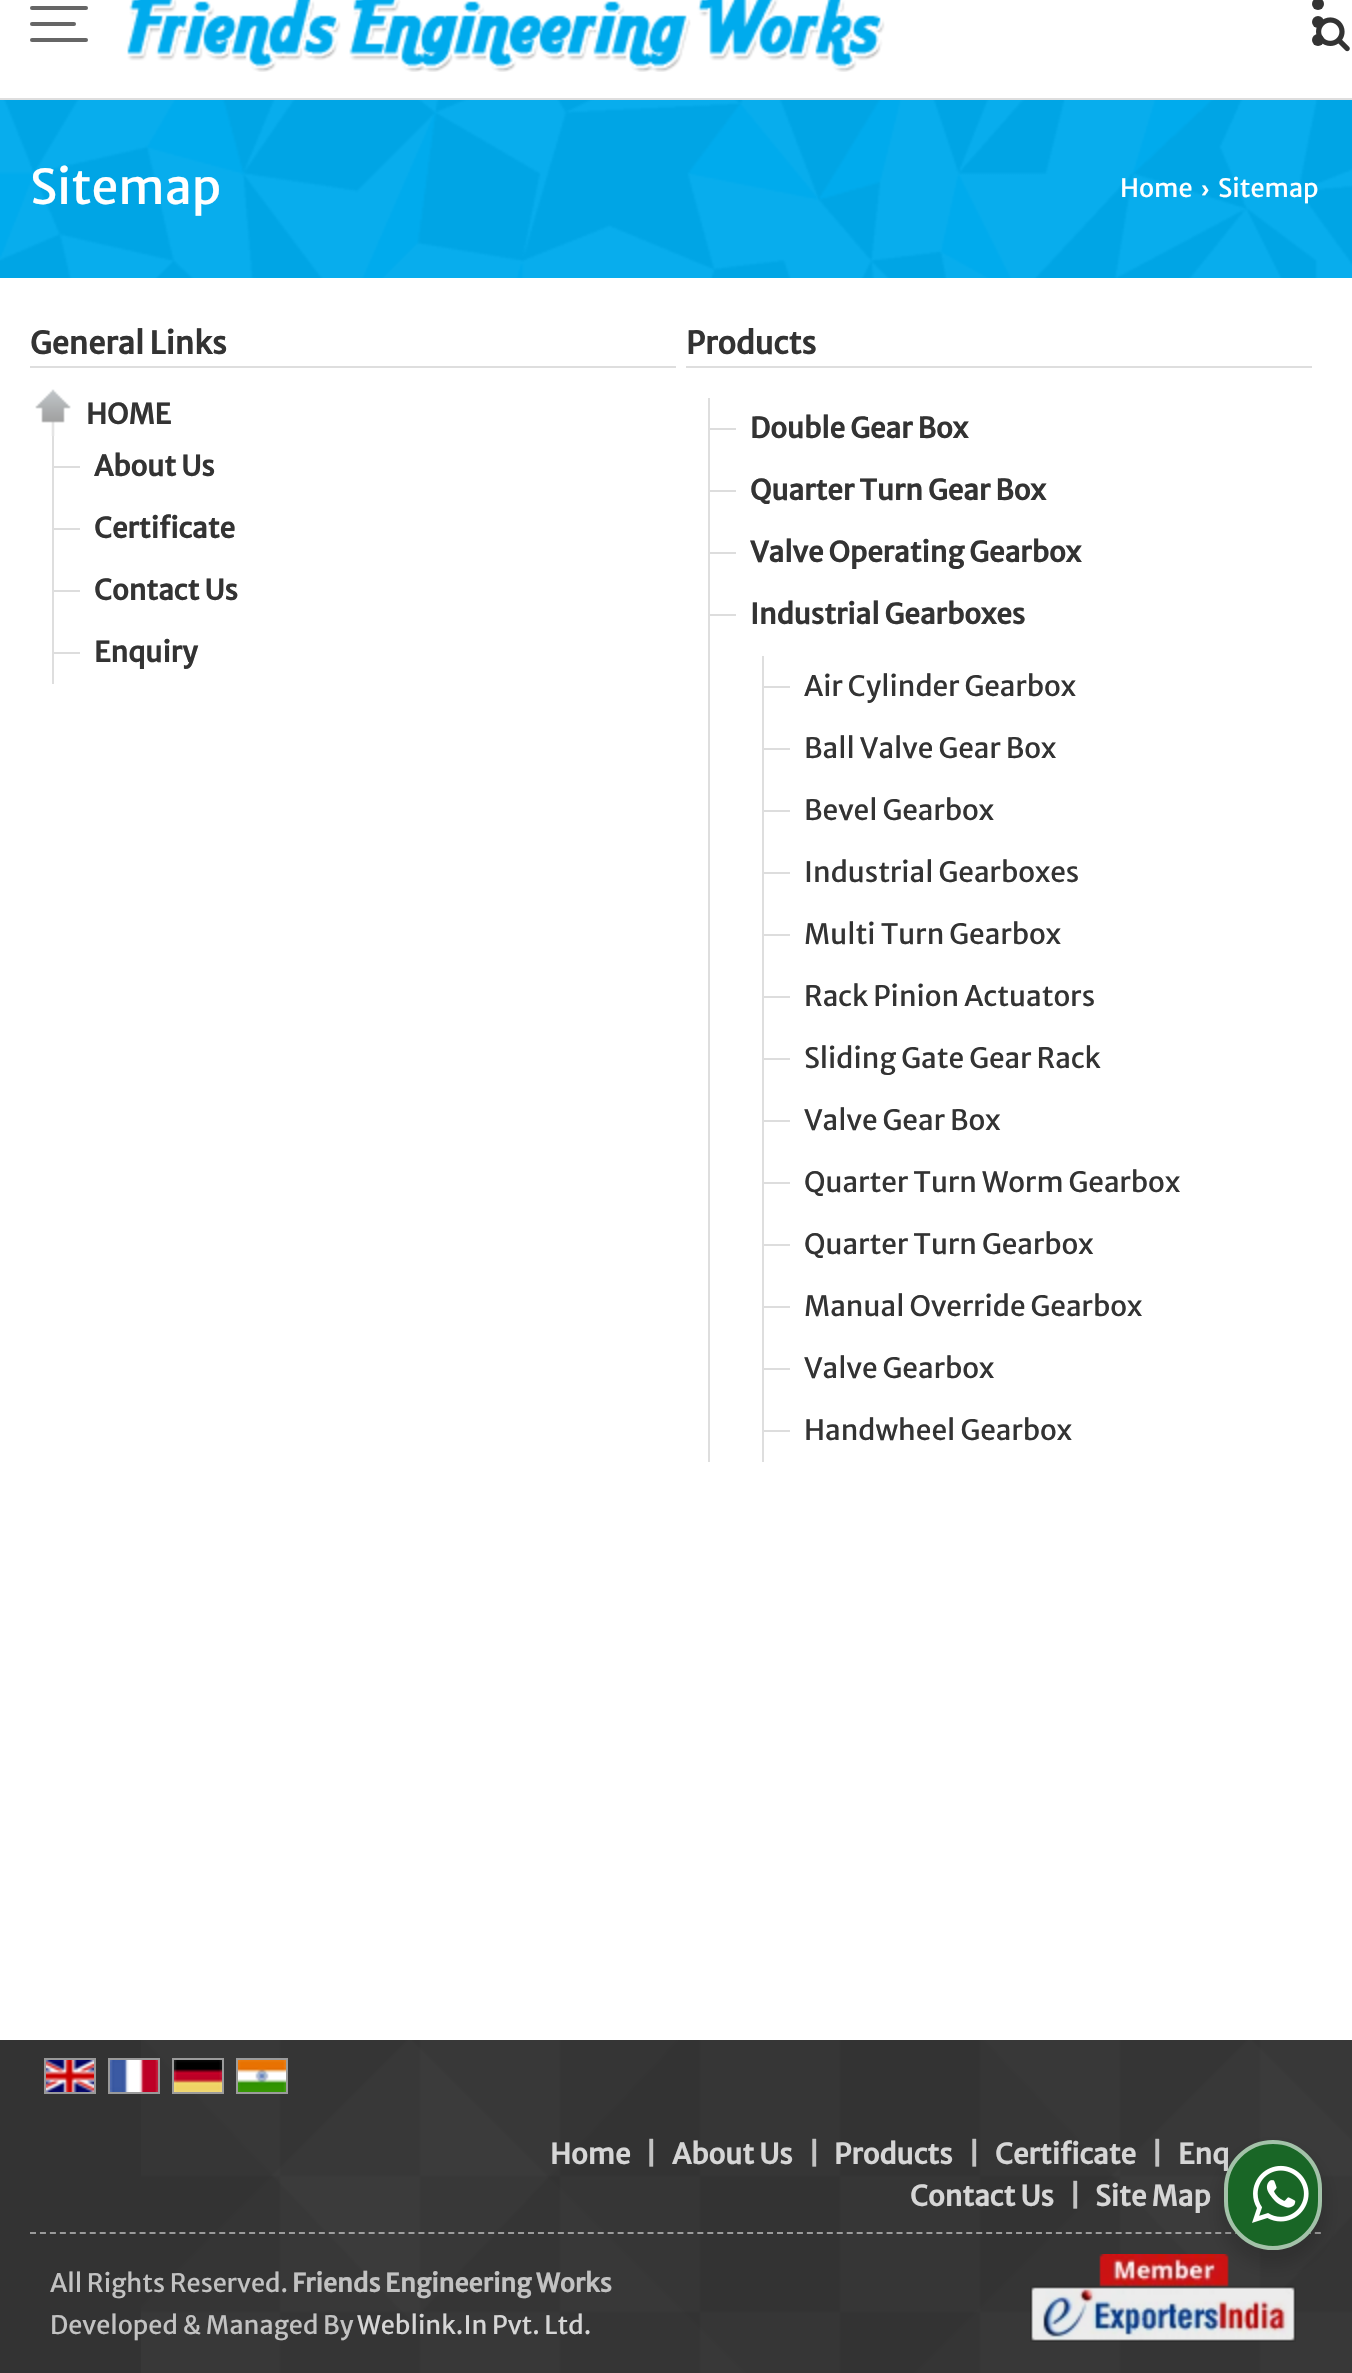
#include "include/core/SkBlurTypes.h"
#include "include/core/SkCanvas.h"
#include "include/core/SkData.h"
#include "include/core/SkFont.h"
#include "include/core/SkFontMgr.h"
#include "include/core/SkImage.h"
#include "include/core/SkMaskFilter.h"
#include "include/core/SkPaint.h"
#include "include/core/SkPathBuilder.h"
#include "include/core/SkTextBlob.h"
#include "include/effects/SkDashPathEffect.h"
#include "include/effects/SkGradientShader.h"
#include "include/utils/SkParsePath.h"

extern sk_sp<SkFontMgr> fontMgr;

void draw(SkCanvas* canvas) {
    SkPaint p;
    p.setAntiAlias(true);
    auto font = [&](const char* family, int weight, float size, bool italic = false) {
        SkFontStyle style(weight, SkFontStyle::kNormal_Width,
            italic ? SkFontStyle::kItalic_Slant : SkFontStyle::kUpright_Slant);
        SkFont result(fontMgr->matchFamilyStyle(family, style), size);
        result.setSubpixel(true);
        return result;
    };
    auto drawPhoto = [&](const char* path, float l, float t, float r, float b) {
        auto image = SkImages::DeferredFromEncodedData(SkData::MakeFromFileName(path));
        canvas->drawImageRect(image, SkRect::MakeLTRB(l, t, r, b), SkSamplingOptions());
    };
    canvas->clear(0xFFFFFFFF);
    drawPhoto("media/2.png", 1316, 17, 1350, 52);
    p.setColor(0xFF333333);
    canvas->drawCircle(1318, 22, 6, p);
    canvas->drawCircle(1318, 4, 6, p);
    canvas->drawCircle(1318, 40, 6, p);
    p.setColor(0xFFDEDEDE);
    canvas->drawRect(SkRect::MakeLTRB(0, 98, 1352, 100), p);
    drawPhoto("media/1.png", 127, 0, 885, 72);
    p.setColor(0xFF666666);
    canvas->drawRoundRect(SkRect::MakeLTRB(30, 6, 88, 10), 2, 2, p);
    canvas->drawRoundRect(SkRect::MakeLTRB(30, 22, 76, 26), 2, 2, p);
    canvas->drawRoundRect(SkRect::MakeLTRB(30, 38, 88, 42), 2, 2, p);
    p.setColor(0xFF00ABED);
    canvas->drawRect(SkRect::MakeLTRB(0, 100, 1352, 278), p);
    drawPhoto("media/3.png", 0, 100, 1352, 278);
    auto font1 = font("Merriweather Sans", 400, 48);
    p.setColor(0xFFFFFFFF);
    canvas->drawString("Sitemap", 30, 204, font1, p);
    auto font2 = font("Merriweather Sans", 400, 25.25f);
    canvas->drawString("Home", 1120, 197, font2, p);
    auto font3 = font("Liberation Sans", 700, 25.25f);
    canvas->drawString("›", 1201, 197, font3, p);
    canvas->drawString("Sitemap", 1218, 197, font2, p);
    p.setColor(0xFFDEDEDE);
    canvas->drawRect(SkRect::MakeLTRB(30, 366, 676, 368), p);
    auto font4 = font("Merriweather Sans", 700, 30.75f);
    p.setColor(0xFF333333);
    canvas->drawString("General Links", 30, 354, font4, p);
    drawPhoto("media/4.png", 35, 389, 71, 436);
    auto font5 = font("Merriweather Sans", 700, 28);
    canvas->drawString("HOME", 86, 424, font5, p);
    p.setColor(0xFFDEDEDE);
    canvas->drawRect(SkRect::MakeLTRB(52, 436, 54, 684), p);
    p.setColor(0xFFDDDDDD);
    canvas->drawRect(SkRect::MakeLTRB(54, 466, 80, 468), p);
    p.setColor(0xFF333333);
    canvas->drawString("About Us", 94, 476, font5, p);
    p.setColor(0xFFDDDDDD);
    canvas->drawRect(SkRect::MakeLTRB(54, 528, 80, 530), p);
    p.setColor(0xFF333333);
    canvas->drawString("Certificate", 94, 538, font5, p);
    p.setColor(0xFFDDDDDD);
    canvas->drawRect(SkRect::MakeLTRB(54, 590, 80, 592), p);
    p.setColor(0xFF333333);
    canvas->drawString("Contact Us", 94, 600, font5, p);
    p.setColor(0xFFDDDDDD);
    canvas->drawRect(SkRect::MakeLTRB(54, 652, 80, 654), p);
    p.setColor(0xFF333333);
    canvas->drawString("Enquiry", 94, 662, font5, p);
    p.setColor(0xFFDEDEDE);
    canvas->drawRect(SkRect::MakeLTRB(686, 366, 1312, 368), p);
    p.setColor(0xFF333333);
    canvas->drawString("Products", 686, 354, font4, p);
    p.setColor(0xFFDEDEDE);
    canvas->drawRect(SkRect::MakeLTRB(708, 398, 710, 1462), p);
    p.setColor(0xFFDDDDDD);
    canvas->drawRect(SkRect::MakeLTRB(710, 428, 736, 430), p);
    p.setColor(0xFF333333);
    canvas->drawString("Double Gear Box", 750, 438, font5, p);
    p.setColor(0xFFDDDDDD);
    canvas->drawRect(SkRect::MakeLTRB(710, 490, 736, 492), p);
    p.setColor(0xFF333333);
    canvas->drawString("Quarter Turn Gear Box", 750, 500, font5, p);
    p.setColor(0xFFDDDDDD);
    canvas->drawRect(SkRect::MakeLTRB(710, 552, 736, 554), p);
    p.setColor(0xFF333333);
    canvas->drawString("Valve Operating Gearbox", 750, 562, font5, p);
    p.setColor(0xFFDDDDDD);
    canvas->drawRect(SkRect::MakeLTRB(710, 614, 736, 616), p);
    p.setColor(0xFF333333);
    canvas->drawString("Industrial Gearboxes", 750, 624, font5, p);
    p.setColor(0xFFDEDEDE);
    canvas->drawRect(SkRect::MakeLTRB(762, 656, 764, 1462), p);
    p.setColor(0xFFDDDDDD);
    canvas->drawRect(SkRect::MakeLTRB(764, 686, 790, 688), p);
    auto font6 = font("Merriweather Sans", 400, 28);
    p.setColor(0xFF333333);
    canvas->drawString("Air Cylinder Gearbox", 804, 696, font6, p);
    p.setColor(0xFFDDDDDD);
    canvas->drawRect(SkRect::MakeLTRB(764, 748, 790, 750), p);
    p.setColor(0xFF333333);
    canvas->drawString("Ball Valve Gear Box", 804, 758, font6, p);
    p.setColor(0xFFDDDDDD);
    canvas->drawRect(SkRect::MakeLTRB(764, 810, 790, 812), p);
    p.setColor(0xFF333333);
    canvas->drawString("Bevel Gearbox", 804, 820, font6, p);
    p.setColor(0xFFDDDDDD);
    canvas->drawRect(SkRect::MakeLTRB(764, 872, 790, 874), p);
    p.setColor(0xFF333333);
    canvas->drawString("Industrial Gearboxes", 804, 882, font6, p);
    p.setColor(0xFFDDDDDD);
    canvas->drawRect(SkRect::MakeLTRB(764, 934, 790, 936), p);
    p.setColor(0xFF333333);
    canvas->drawString("Multi Turn Gearbox", 804, 944, font6, p);
    p.setColor(0xFFDDDDDD);
    canvas->drawRect(SkRect::MakeLTRB(764, 996, 790, 998), p);
    p.setColor(0xFF333333);
    canvas->drawString("Rack Pinion Actuators", 804, 1006, font6, p);
    p.setColor(0xFFDDDDDD);
    canvas->drawRect(SkRect::MakeLTRB(764, 1058, 790, 1060), p);
    p.setColor(0xFF333333);
    canvas->drawString("Sliding Gate Gear Rack", 804, 1068, font6, p);
    p.setColor(0xFFDDDDDD);
    canvas->drawRect(SkRect::MakeLTRB(764, 1120, 790, 1122), p);
    p.setColor(0xFF333333);
    canvas->drawString("Valve Gear Box", 804, 1130, font6, p);
    p.setColor(0xFFDDDDDD);
    canvas->drawRect(SkRect::MakeLTRB(764, 1182, 790, 1184), p);
    p.setColor(0xFF333333);
    canvas->drawString("Quarter Turn Worm Gearbox", 804, 1192, font6, p);
    p.setColor(0xFFDDDDDD);
    canvas->drawRect(SkRect::MakeLTRB(764, 1244, 790, 1246), p);
    p.setColor(0xFF333333);
    canvas->drawString("Quarter Turn Gearbox", 804, 1254, font6, p);
    p.setColor(0xFFDDDDDD);
    canvas->drawRect(SkRect::MakeLTRB(764, 1306, 790, 1308), p);
    p.setColor(0xFF333333);
    canvas->drawString("Manual Override Gearbox", 804, 1316, font6, p);
    p.setColor(0xFFDDDDDD);
    canvas->drawRect(SkRect::MakeLTRB(764, 1368, 790, 1370), p);
    p.setColor(0xFF333333);
    canvas->drawString("Valve Gearbox", 804, 1378, font6, p);
    p.setColor(0xFFDDDDDD);
    canvas->drawRect(SkRect::MakeLTRB(764, 1430, 790, 1432), p);
    p.setColor(0xFF333333);
    canvas->drawString("Handwheel Gearbox", 804, 1440, font6, p);
    canvas->drawRect(SkRect::MakeLTRB(0, 2040, 1352, 2373), p);
    drawPhoto("media/5.png", 141, 2040, 1352, 2373);
    p.setStyle(SkPaint::kStroke_Style);
    p.setStrokeWidth(2);
    p.setColor(0xFF999999);
    canvas->drawRect(SkRect::MakeLTRB(45, 2059, 95, 2093), p);
    p.setColor(0xFF9A9A9A);
    canvas->drawRect(SkRect::MakeLTRB(109, 2059, 159, 2093), p);
    p.setColor(0xFF9B9B9B);
    canvas->drawRect(SkRect::MakeLTRB(173, 2059, 223, 2093), p);
    p.setColor(0x80FFFFFF);
    canvas->drawRect(SkRect::MakeLTRB(237, 2059, 287, 2093), p);
    drawPhoto("media/6.png", 46, 2060, 94, 2092);
    drawPhoto("media/7.png", 110, 2060, 158, 2092);
    drawPhoto("media/8.png", 174, 2060, 222, 2092);
    drawPhoto("media/9.png", 238, 2060, 286, 2092);
    p.setStyle(SkPaint::kFill_Style);
    p.setColor(0xFFD6D6D6);
    canvas->drawString("Home", 550, 2164, font5, p);
    p.setColor(0xFFC2C2C2);
    canvas->drawString("|", 645, 2164, font5, p);
    p.setColor(0xFFD6D6D6);
    canvas->drawString("About Us", 672, 2164, font5, p);
    p.setColor(0xFFC2C2C2);
    canvas->drawString("|", 808, 2164, font5, p);
    p.setColor(0xFFD6D6D6);
    canvas->drawString("Products", 834, 2164, font5, p);
    p.setColor(0xFFC2C2C2);
    canvas->drawString("|", 968, 2164, font5, p);
    p.setColor(0xFFD6D6D6);
    canvas->drawString("Certificate", 995, 2164, font5, p);
    p.setColor(0xFFC2C2C2);
    canvas->drawString("|", 1151, 2164, font5, p);
    p.setColor(0xFFD6D6D6);
    canvas->drawString("Enq", 1178, 2164, font5, p);
    canvas->drawString("Contact Us", 910, 2206, font5, p);
    p.setColor(0xFFC2C2C2);
    canvas->drawString("|", 1069, 2206, font5, p);
    p.setColor(0xFFD6D6D6);
    canvas->drawString("Site Map", 1095, 2206, font5, p);
    p.setStyle(SkPaint::kStroke_Style);
    p.setColor(0x80FFFFFF);
    p.setPathEffect(SkDashPathEffect::Make({{6, 3.96f}}, 0));
    canvas->drawPath(SkPathBuilder().moveTo(30, 2233).lineTo(1322, 2233).detach(), p);
    p.setPathEffect(nullptr);
    p.setStyle(SkPaint::kFill_Style);
    p.setColor(0xFFC2C2C2);
    canvas->drawString("All Rights Reserved.", 50, 2292, font2, p);
    auto font7 = font("Merriweather Sans", 700, 25.25f);
    canvas->drawString("Friends Engineering Works", 292, 2292, font7, p);
    canvas->drawString("Developed & Managed By", 50, 2334, font2, p);
    p.setColor(0xFFD6D6D6);
    canvas->drawString("Weblink.In Pvt. Ltd.", 357, 2334, font2, p);
    drawPhoto("media/10.png", 1030, 2254, 1296, 2342);
    p.setColor(0x24000000);
    p.setMaskFilter(SkMaskFilter::MakeBlur(kNormal_SkBlurStyle, 8));
    canvas->drawRoundRect(SkRect::MakeLTRB(1220, 2148, 1326, 2266), 53, 53, p);
    p.setMaskFilter(nullptr);
    p.setColor(0xFF196626);
    canvas->drawRoundRect(SkRect::MakeLTRB(1224, 2140, 1322, 2250), 49, 49, p);
    p.setStyle(SkPaint::kStroke_Style);
    p.setStrokeWidth(4);
    p.setColor(0x99FFFFFF);
    canvas->drawRoundRect(SkRect::MakeLTRB(1226, 2142, 1320, 2248), 47, 47, p);
    drawPhoto("media/11.png", 1252, 2165, 1309, 2223);
}
